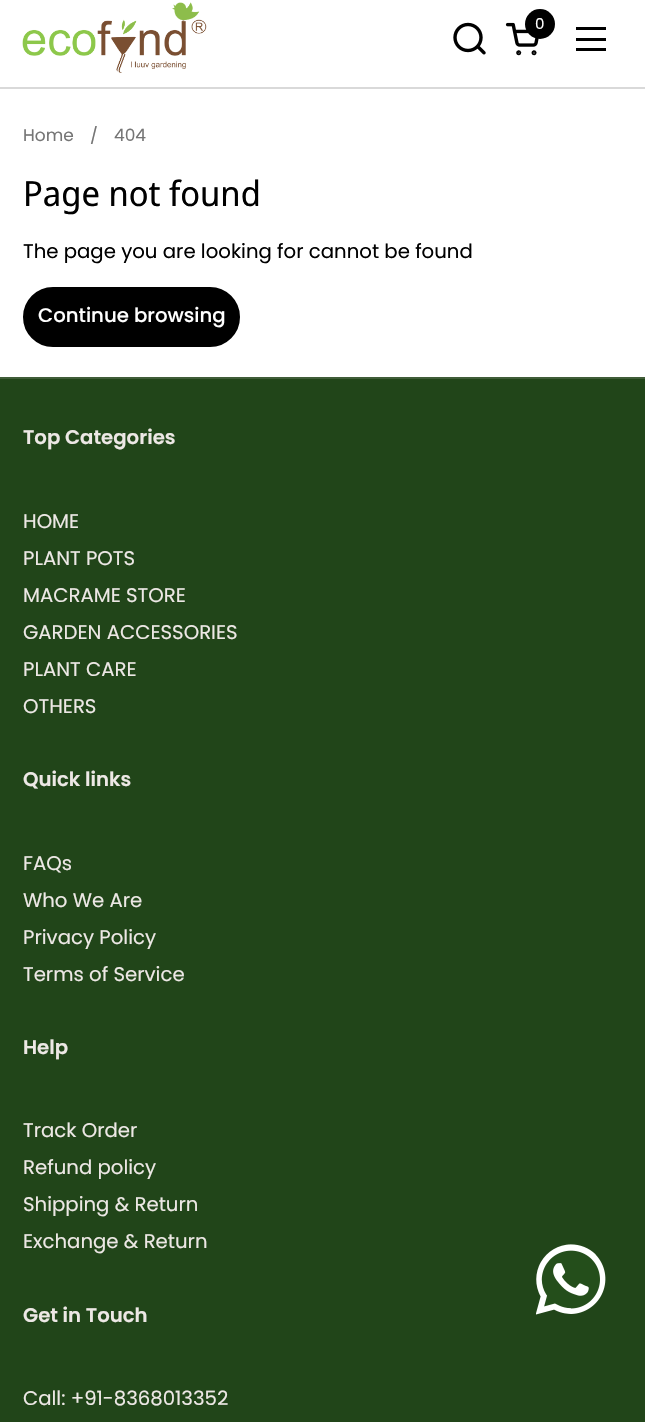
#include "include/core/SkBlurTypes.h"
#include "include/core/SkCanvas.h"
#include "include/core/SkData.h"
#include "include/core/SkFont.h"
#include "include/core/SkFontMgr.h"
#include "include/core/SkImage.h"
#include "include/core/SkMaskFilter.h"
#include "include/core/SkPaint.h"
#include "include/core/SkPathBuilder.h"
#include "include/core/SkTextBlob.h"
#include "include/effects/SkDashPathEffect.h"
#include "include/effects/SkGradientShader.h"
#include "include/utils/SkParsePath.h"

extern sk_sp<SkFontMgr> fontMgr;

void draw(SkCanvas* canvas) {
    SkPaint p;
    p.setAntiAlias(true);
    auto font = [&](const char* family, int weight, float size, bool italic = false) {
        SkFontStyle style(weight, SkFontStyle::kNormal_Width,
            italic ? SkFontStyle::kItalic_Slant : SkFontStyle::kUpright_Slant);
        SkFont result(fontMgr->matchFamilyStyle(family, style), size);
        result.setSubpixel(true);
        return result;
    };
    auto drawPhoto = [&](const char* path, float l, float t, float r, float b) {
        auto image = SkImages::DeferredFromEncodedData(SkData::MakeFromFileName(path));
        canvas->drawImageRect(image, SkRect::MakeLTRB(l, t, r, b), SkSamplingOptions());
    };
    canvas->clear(0xFFFFFFFF);
    drawPhoto("media/1.png", 22, 2, 207, 73);
    drawPhoto("media/2.png", 453, 22, 486, 55);
    p.setColor(0xFF000000);
    canvas->drawCircle(540, 24, 15, p);
    auto font1 = font("Poppins", 400, 15);
    p.setColor(0xFFFFFFFF);
    canvas->drawString("0", 535, 29, font1, p);
    drawPhoto("media/3.png", 505, 22, 539, 56);
    {
        const struct { float l, t, r, b; SkColor color; } items[] = {
            {576, 27, 606, 30, 0xFF000000},
            {576, 38, 606, 41, 0xFF000000},
            {576, 48, 606, 51, 0xFF000000},
            {0, 87, 645, 89, 0xFFD9D9D9},
        };
        for (auto [l, t, r, b, color] : items) {
            p.setColor(color);
            canvas->drawRect(SkRect::MakeLTRB(l, t, r, b), p);
        }
    }
    auto font2 = font("Poppins", 400, 17);
    p.setColor(0xFF757575);
    canvas->drawString("Home", 23, 141, font2, p);
    canvas->save();
    canvas->clipRect(SkRect::MakeLTRB(23, 126, 623, 156));
    canvas->drawString("/", 90, 141, font2, p);
    canvas->restore();
    canvas->drawString("404", 114, 141, font2, p);
    auto font3 = font("Noto Sans Display", 400, 34.75f);
    p.setColor(0xFF000000);
    canvas->drawString("Page not found", 23, 206, font3, p);
    auto font4 = font("Poppins", 400, 19.7f);
    canvas->drawString("The page you are looking for cannot be found", 23, 258, font4, p);
    canvas->drawRoundRect(SkRect::MakeLTRB(24, 288, 239, 346), 29, 29, p);
    p.setStyle(SkPaint::kStroke_Style);
    p.setStrokeWidth(2);
    canvas->drawRoundRect(SkRect::MakeLTRB(24, 288, 239, 346), 29, 29, p);
    auto font5 = font("Poppins", 500, 19.7f);
    p.setStyle(SkPaint::kFill_Style);
    p.setColor(0xFFFFFFFF);
    canvas->drawString("Continue browsing", 38, 322, font5, p);
    p.setColor(0xFF214519);
    canvas->drawRect(SkRect::MakeLTRB(0, 379, 645, 1422), p);
    p.setColor(0xFF405D38);
    canvas->drawRect(SkRect::MakeLTRB(0, 377, 645, 379), p);
    auto font6 = font("Poppins", 600, 19.7f);
    p.setColor(0xFFEDE8E5);
    canvas->drawString("Top Categories", 23, 444, font6, p);
    {
        const struct { const char* s; float x, y; } items[] = {
            {"HOME", 23, 528},
            {"PLANT POTS", 23, 565},
            {"MACRAME STORE", 23, 602},
            {"GARDEN ACCESSORIES", 23, 639},
            {"PLANT CARE", 23, 676},
            {"OTHERS", 23, 713},
        };
        for (auto [s, x, y] : items) {
            canvas->drawString(s, x, y, font4, p);
        }
    }
    canvas->drawString("Quick links", 23, 786, font6, p);
    {
        const struct { const char* s; float x, y; } items[] = {
            {"FAQs", 23, 870},
            {"Who We Are", 23, 907},
            {"Privacy Policy", 23, 944},
            {"Terms of Service", 23, 981},
        };
        for (auto [s, x, y] : items) {
            canvas->drawString(s, x, y, font4, p);
        }
    }
    canvas->drawString("Help", 23, 1054, font6, p);
    {
        const struct { const char* s; float x, y; } items[] = {
            {"Track Order", 23, 1137},
            {"Refund policy", 23, 1174},
            {"Shipping & Return", 23, 1211},
            {"Exchange & Return", 23, 1248},
        };
        for (auto [s, x, y] : items) {
            canvas->drawString(s, x, y, font4, p);
        }
    }
    canvas->drawString("Get in Touch", 23, 1322, font6, p);
    canvas->drawString("Call: +91-8368013352", 23, 1405, font4, p);
    drawPhoto("media/4.png", 536, 1244, 606, 1315);
}
